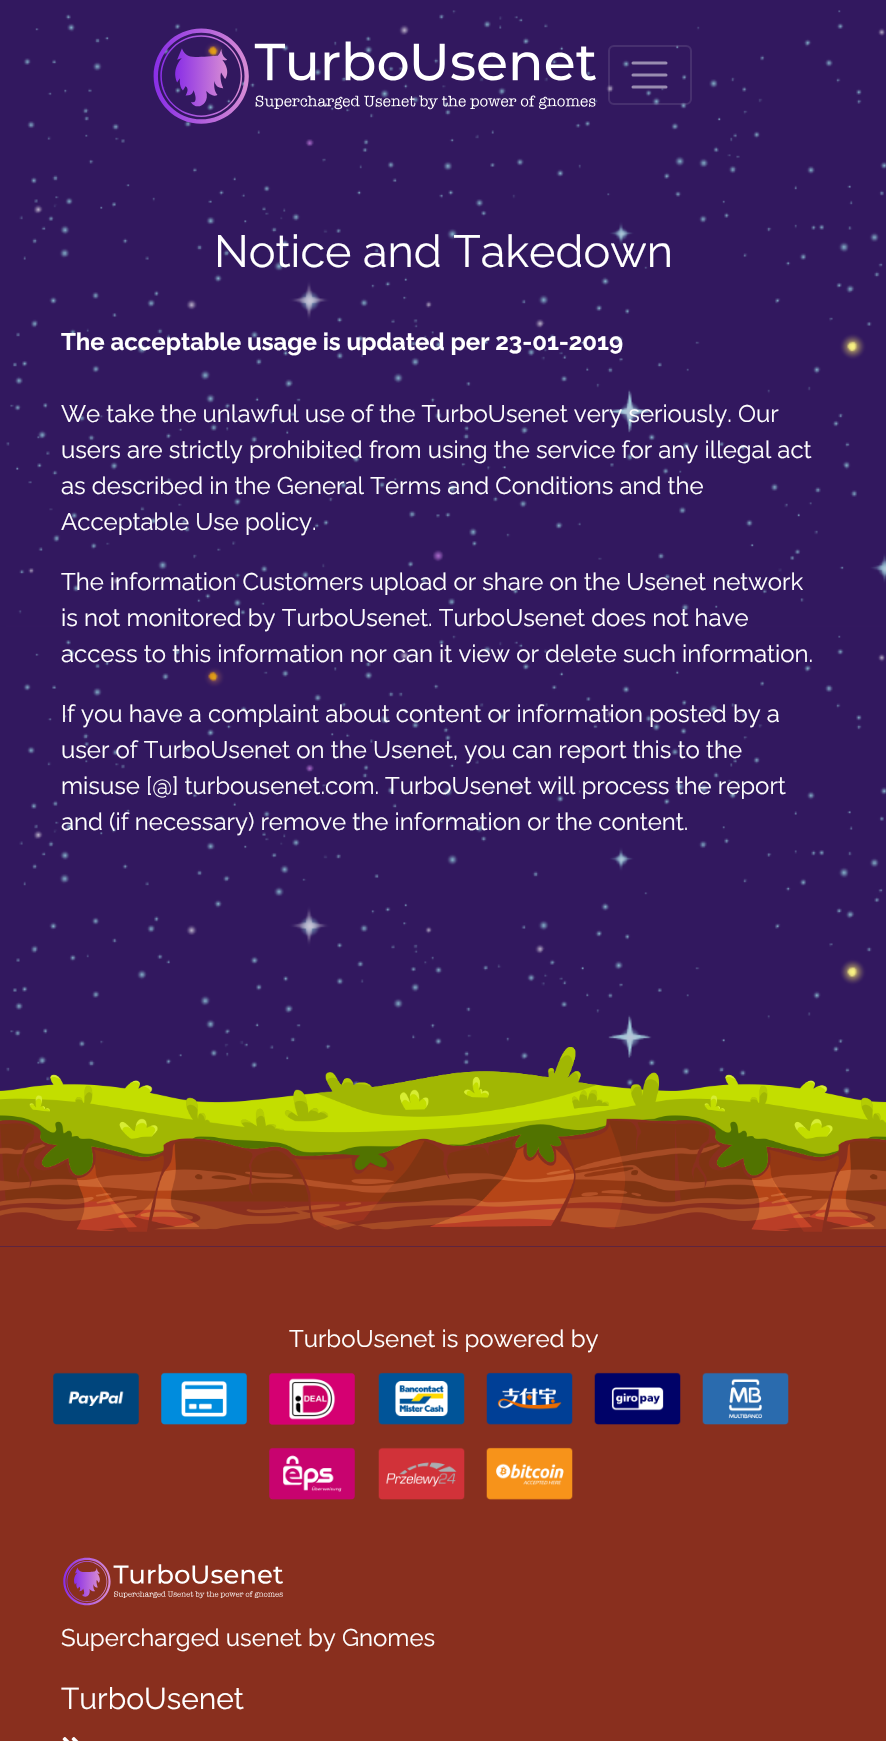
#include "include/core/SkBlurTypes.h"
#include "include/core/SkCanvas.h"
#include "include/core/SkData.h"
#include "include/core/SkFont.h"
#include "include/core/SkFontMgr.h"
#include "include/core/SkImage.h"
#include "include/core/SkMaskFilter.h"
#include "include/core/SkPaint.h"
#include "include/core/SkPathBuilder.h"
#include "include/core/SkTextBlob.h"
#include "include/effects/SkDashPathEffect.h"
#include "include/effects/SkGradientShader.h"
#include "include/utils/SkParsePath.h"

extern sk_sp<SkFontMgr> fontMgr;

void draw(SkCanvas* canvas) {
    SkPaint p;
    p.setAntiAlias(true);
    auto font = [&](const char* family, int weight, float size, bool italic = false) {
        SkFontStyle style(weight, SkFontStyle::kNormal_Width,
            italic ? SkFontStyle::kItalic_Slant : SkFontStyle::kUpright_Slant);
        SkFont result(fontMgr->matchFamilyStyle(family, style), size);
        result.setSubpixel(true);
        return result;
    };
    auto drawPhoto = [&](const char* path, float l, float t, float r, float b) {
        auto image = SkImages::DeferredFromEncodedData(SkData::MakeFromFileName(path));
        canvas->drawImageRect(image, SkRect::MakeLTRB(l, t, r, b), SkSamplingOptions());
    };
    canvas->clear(0xFF32185F);
    drawPhoto("media/1.png", 6, 10, 886, 1247);
    drawPhoto("media/2.png", 153, 28, 596, 124);
    p.setStyle(SkPaint::kStroke_Style);
    p.setStrokeWidth(2);
    p.setColor(0x1AFFFFFF);
    canvas->drawRoundRect(SkRect::MakeLTRB(609, 46, 691, 104), 5, 5, p);
    p.setStrokeWidth(3);
    p.setStrokeCap(SkPaint::kRound_Cap);
    p.setColor(0x80FFFFFF);
    canvas->drawPath(SkPathBuilder().moveTo(633, 63).lineTo(666, 63).moveTo(633, 75).lineTo(666, 75).moveTo(633, 87).lineTo(666, 87).detach(), p);
    auto font1 = font("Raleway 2", 100, 45);
    p.setStyle(SkPaint::kFill_Style);
    p.setColor(0xFFFFFFFF);
    canvas->drawString("Notice and Takedown", 214, 267, font1, p);
    auto font2 = font("Raleway", 100, 24);
    canvas->drawString("The acceptable usage is updated per 23-01-2019", 61, 350, font2, p);
    auto font3 = font("Raleway 2", 100, 24);
    {
        const struct { const char* s; float x, y; } items[] = {
            {"We take the unlawful use of the TurboUsenet very seriously. Our", 61, 422},
            {"users are strictly prohibited from using the service for any illegal act", 61, 458},
            {"as described in the General Terms and Conditions and the", 61, 494},
            {"Acceptable Use policy.", 61, 530},
            {"The information Customers upload or share on the Usenet network", 61, 590},
            {"is not monitored by TurboUsenet. TurboUsenet does not have", 61, 626},
            {"access to this information nor can it view or delete such information.", 61, 662},
            {"If you have a complaint about content or information posted by a", 61, 722},
            {"user of TurboUsenet on the Usenet, you can report this to the", 61, 758},
            {"misuse [@] turbousenet.com. TurboUsenet will process the report", 61, 794},
            {"and (if necessary) remove the information or the content.", 61, 830},
        };
        for (auto [s, x, y] : items) {
            canvas->drawString(s, x, y, font3, p);
        }
    }
    drawPhoto("media/3.png", 0, 1047, 886, 1247);
    p.setColor(0xFF892F1E);
    canvas->drawRect(SkRect::MakeLTRB(0, 1247, 886, 1741), p);
    p.setColor(0xFFFFFFFF);
    canvas->drawString("TurboUsenet is powered by", 289, 1347, font3, p);
    drawPhoto("media/4.png", 53, 1372, 139, 1425);
    drawPhoto("media/5.png", 161, 1372, 247, 1425);
    drawPhoto("media/6.png", 269, 1373, 355, 1425);
    drawPhoto("media/7.png", 378, 1372, 465, 1425);
    drawPhoto("media/8.png", 486, 1372, 573, 1425);
    drawPhoto("media/9.png", 594, 1372, 681, 1425);
    drawPhoto("media/10.png", 702, 1372, 789, 1425);
    drawPhoto("media/11.png", 269, 1447, 355, 1500);
    drawPhoto("media/12.png", 378, 1447, 465, 1500);
    drawPhoto("media/13.png", 486, 1447, 573, 1500);
    drawPhoto("media/14.png", 63, 1557, 283, 1606);
    canvas->drawString("Supercharged usenet by Gnomes", 61, 1646, font3, p);
    auto font4 = font("Raleway 2", 100, 30);
    canvas->drawString("TurboUsenet", 61, 1709, font4, p);
    drawPhoto("media/15.png", 62, 1737, 79, 1741);
}
